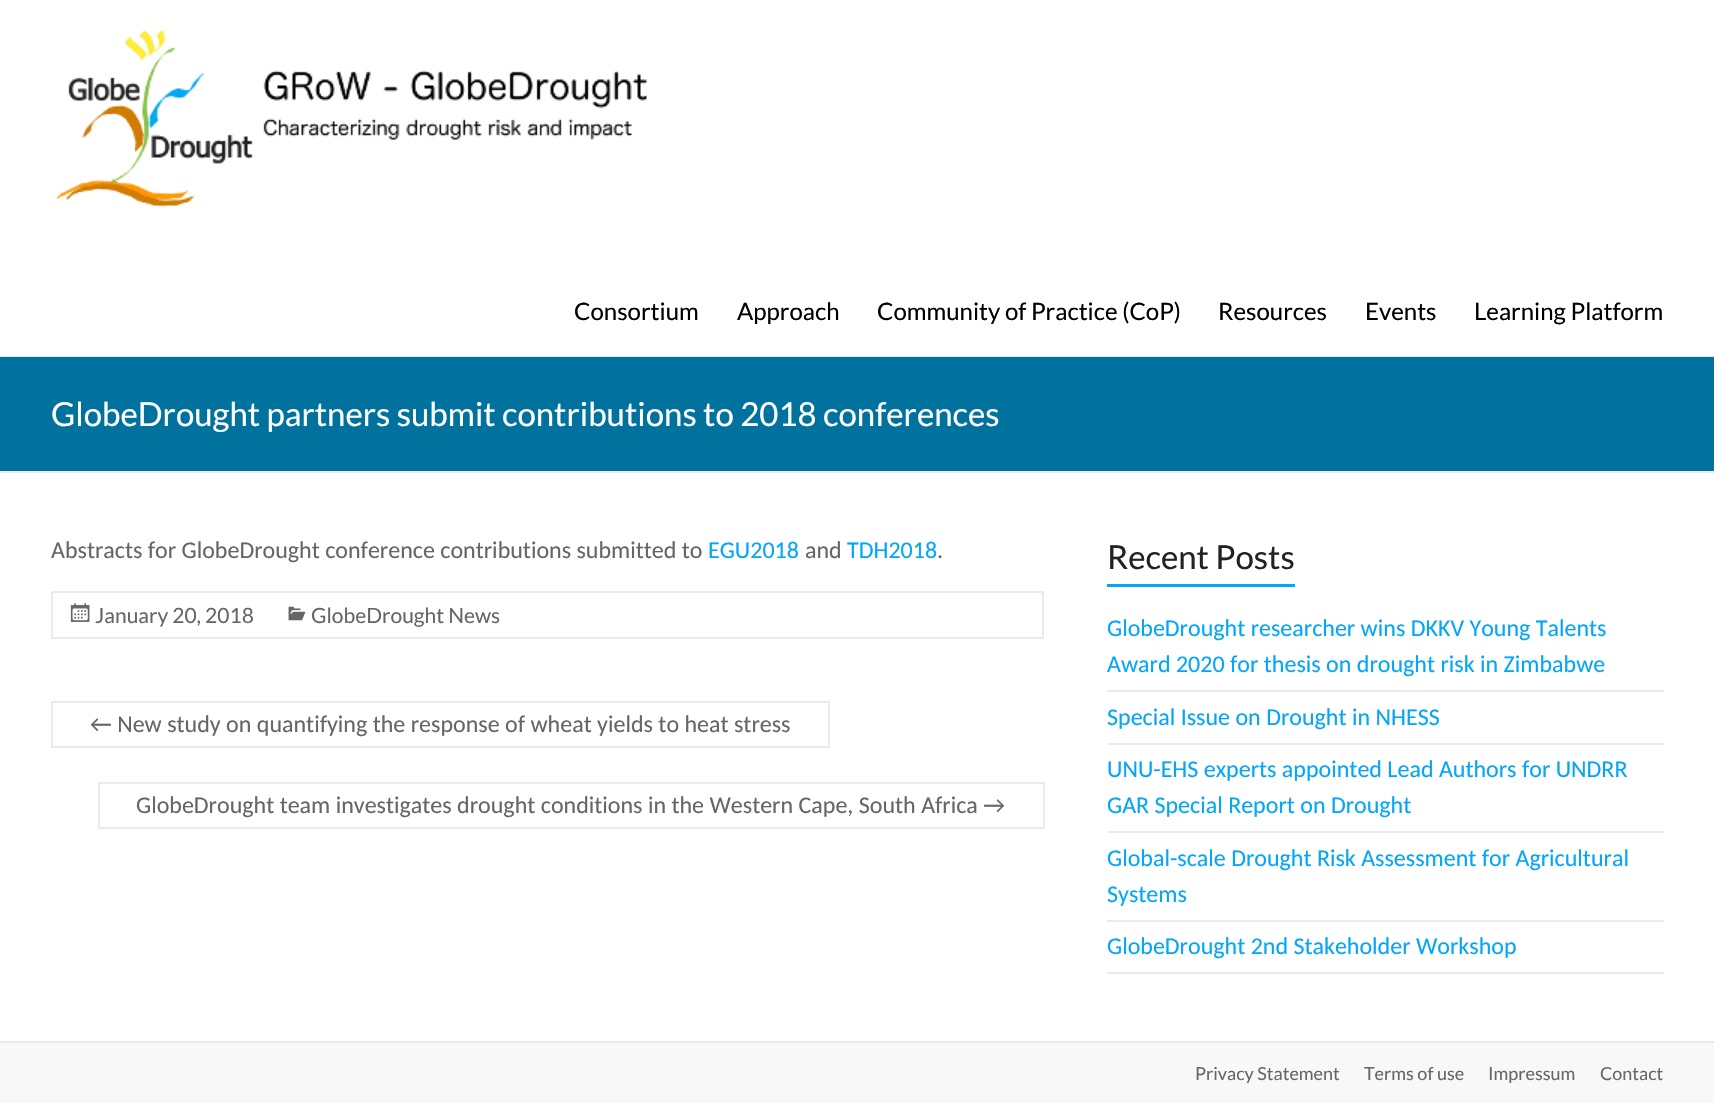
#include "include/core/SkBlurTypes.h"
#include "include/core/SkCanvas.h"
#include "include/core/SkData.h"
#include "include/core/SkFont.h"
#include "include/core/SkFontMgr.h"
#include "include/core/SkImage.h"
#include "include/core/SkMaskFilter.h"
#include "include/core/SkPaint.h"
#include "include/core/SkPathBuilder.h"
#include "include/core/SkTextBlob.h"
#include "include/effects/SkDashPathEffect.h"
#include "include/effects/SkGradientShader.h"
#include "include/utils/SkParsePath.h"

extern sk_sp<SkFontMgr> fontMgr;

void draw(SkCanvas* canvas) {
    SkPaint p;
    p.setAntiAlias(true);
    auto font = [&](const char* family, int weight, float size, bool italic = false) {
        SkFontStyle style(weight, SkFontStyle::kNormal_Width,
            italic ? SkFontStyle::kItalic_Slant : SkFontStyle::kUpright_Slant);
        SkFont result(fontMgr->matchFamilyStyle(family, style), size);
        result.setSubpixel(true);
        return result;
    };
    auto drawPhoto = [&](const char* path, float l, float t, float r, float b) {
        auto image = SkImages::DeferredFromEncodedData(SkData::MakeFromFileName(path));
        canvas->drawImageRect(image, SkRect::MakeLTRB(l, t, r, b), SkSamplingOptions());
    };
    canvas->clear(0xFFFFFFFF);
    p.setColor(0xFFEAEAEA);
    canvas->drawRect(SkRect::MakeLTRB(0, 356, 1714, 357), p);
    drawPhoto("media/1.png", 56, 29, 647, 208);
    auto font1 = font("Lato", 400, 24);
    p.setColor(0xFF000000);
    {
        const struct { const char* s; float x, y; } items[] = {
            {"Consortium", 574, 320},
            {"Approach", 737, 320},
            {"Community of Practice (CoP)", 877, 320},
            {"Resources", 1218, 320},
            {"Events", 1365, 320},
            {"Learning Platform", 1474, 320},
        };
        for (auto [s, x, y] : items) {
            canvas->drawString(s, x, y, font1, p);
        }
    }
    p.setColor(0xFF01729D);
    canvas->drawRect(SkRect::MakeLTRB(0, 357, 1714, 471), p);
    p.setColor(0xFFEAEAEA);
    canvas->drawRect(SkRect::MakeLTRB(0, 471, 1714, 473), p);
    auto font2 = font("Lato", 400, 33);
    p.setColor(0xFFFFFFFF);
    canvas->drawString("GlobeDrought partners submit contributions to 2018 conferences", 51, 426, font2, p);
    auto font3 = font("Carlito", 400, 24);
    p.setColor(0xFF666666);
    canvas->drawString("Abstracts for GlobeDrought conference contributions submitted to", 51, 558, font3, p);
    p.setColor(0xFF04A6F7);
    canvas->drawString("EGU2018", 708, 558, font3, p);
    p.setColor(0xFF666666);
    canvas->drawString("and", 805, 558, font3, p);
    p.setColor(0xFF04A6F7);
    canvas->drawString("TDH2018", 847, 558, font3, p);
    p.setColor(0xFF666666);
    canvas->drawString(".", 937, 558, font3, p);
    p.setStyle(SkPaint::kStroke_Style);
    p.setStrokeWidth(2);
    p.setColor(0xFFEAEAEA);
    canvas->drawRect(SkRect::MakeLTRB(52, 592, 1043, 638), p);
    drawPhoto("media/2.png", 70, 603, 90, 622);
    auto font4 = font("Lato", 400, 21);
    p.setStyle(SkPaint::kFill_Style);
    p.setColor(0xFF666666);
    canvas->drawString("January 20, 2018", 95, 623, font4, p);
    drawPhoto("media/3.png", 288, 606, 306, 621);
    canvas->drawString("GlobeDrought News", 311, 623, font4, p);
    canvas->drawString("← New study on quantifying the response of wheat yields to heat stress", 90, 732, font3, p);
    {
        const struct { float l, t, r, b; SkColor color; } items[] = {
            {51, 701, 830, 703, 0xFFEAEAEA},
            {51, 746, 113, 748, 0xFFEAEAEA},
            {51, 701, 53, 747, 0xFFEAEAEA},
            {828, 701, 830, 747, 0xFFEAEAEA},
            {113, 746, 830, 748, 0xFFEAEAEA},
        };
        for (auto [l, t, r, b, color] : items) {
            p.setColor(color);
            canvas->drawRect(SkRect::MakeLTRB(l, t, r, b), p);
        }
    }
    p.setColor(0xFF666666);
    canvas->drawString("GlobeDrought team investigates drought conditions in the Western Cape, South Africa →", 136, 813, font3, p);
    {
        const struct { float l, t, r, b; SkColor color; } items[] = {
            {98, 782, 1044, 784, 0xFFEAEAEA},
            {98, 827, 983, 829, 0xFFEAEAEA},
            {98, 782, 100, 828, 0xFFEAEAEA},
            {1043, 782, 1045, 828, 0xFFEAEAEA},
            {983, 827, 1044, 829, 0xFFEAEAEA},
        };
        for (auto [l, t, r, b, color] : items) {
            p.setColor(color);
            canvas->drawRect(SkRect::MakeLTRB(l, t, r, b), p);
        }
    }
    p.setColor(0xFF222222);
    canvas->drawString("Recent Posts", 1107, 569, font2, p);
    p.setColor(0xFF04A6F7);
    canvas->drawRect(SkRect::MakeLTRB(1107, 584, 1295, 587), p);
    p.setColor(0xFFEAEAEA);
    canvas->drawRect(SkRect::MakeLTRB(1107, 690, 1664, 692), p);
    p.setColor(0xFF04A6F7);
    canvas->drawString("GlobeDrought researcher wins DKKV Young Talents", 1107, 636, font3, p);
    canvas->drawString("Award 2020 for thesis on drought risk in Zimbabwe", 1107, 672, font3, p);
    p.setColor(0xFFEAEAEA);
    canvas->drawRect(SkRect::MakeLTRB(1107, 743, 1664, 745), p);
    p.setColor(0xFF04A6F7);
    canvas->drawString("Special Issue on Drought in NHESS", 1107, 725, font3, p);
    p.setColor(0xFFEAEAEA);
    canvas->drawRect(SkRect::MakeLTRB(1107, 831, 1664, 833), p);
    p.setColor(0xFF04A6F7);
    canvas->drawString("UNU-EHS experts appointed Lead Authors for UNDRR", 1107, 777, font3, p);
    canvas->drawString("GAR Special Report on Drought", 1107, 813, font3, p);
    p.setColor(0xFFEAEAEA);
    canvas->drawRect(SkRect::MakeLTRB(1107, 920, 1664, 922), p);
    p.setColor(0xFF04A6F7);
    canvas->drawString("Global-scale Drought Risk Assessment for Agricultural", 1107, 866, font3, p);
    canvas->drawString("Systems", 1107, 902, font3, p);
    p.setColor(0xFFEAEAEA);
    canvas->drawRect(SkRect::MakeLTRB(1107, 972, 1664, 974), p);
    p.setColor(0xFF04A6F7);
    canvas->drawString("GlobeDrought 2nd Stakeholder Workshop", 1107, 954, font3, p);
    p.setColor(0xFFF8F8F8);
    canvas->drawRect(SkRect::MakeLTRB(0, 1043, 1714, 1103), p);
    p.setColor(0xFFEAEAEA);
    canvas->drawRect(SkRect::MakeLTRB(0, 1041, 1714, 1043), p);
    auto font5 = font("Lato", 400, 18);
    p.setColor(0xFF666666);
    {
        const struct { const char* s; float x, y; } items[] = {
            {"Privacy Statement", 1195, 1080},
            {"Terms of use", 1364, 1080},
            {"Impressum", 1488, 1080},
            {"Contact", 1600, 1080},
        };
        for (auto [s, x, y] : items) {
            canvas->drawString(s, x, y, font5, p);
        }
    }
}
